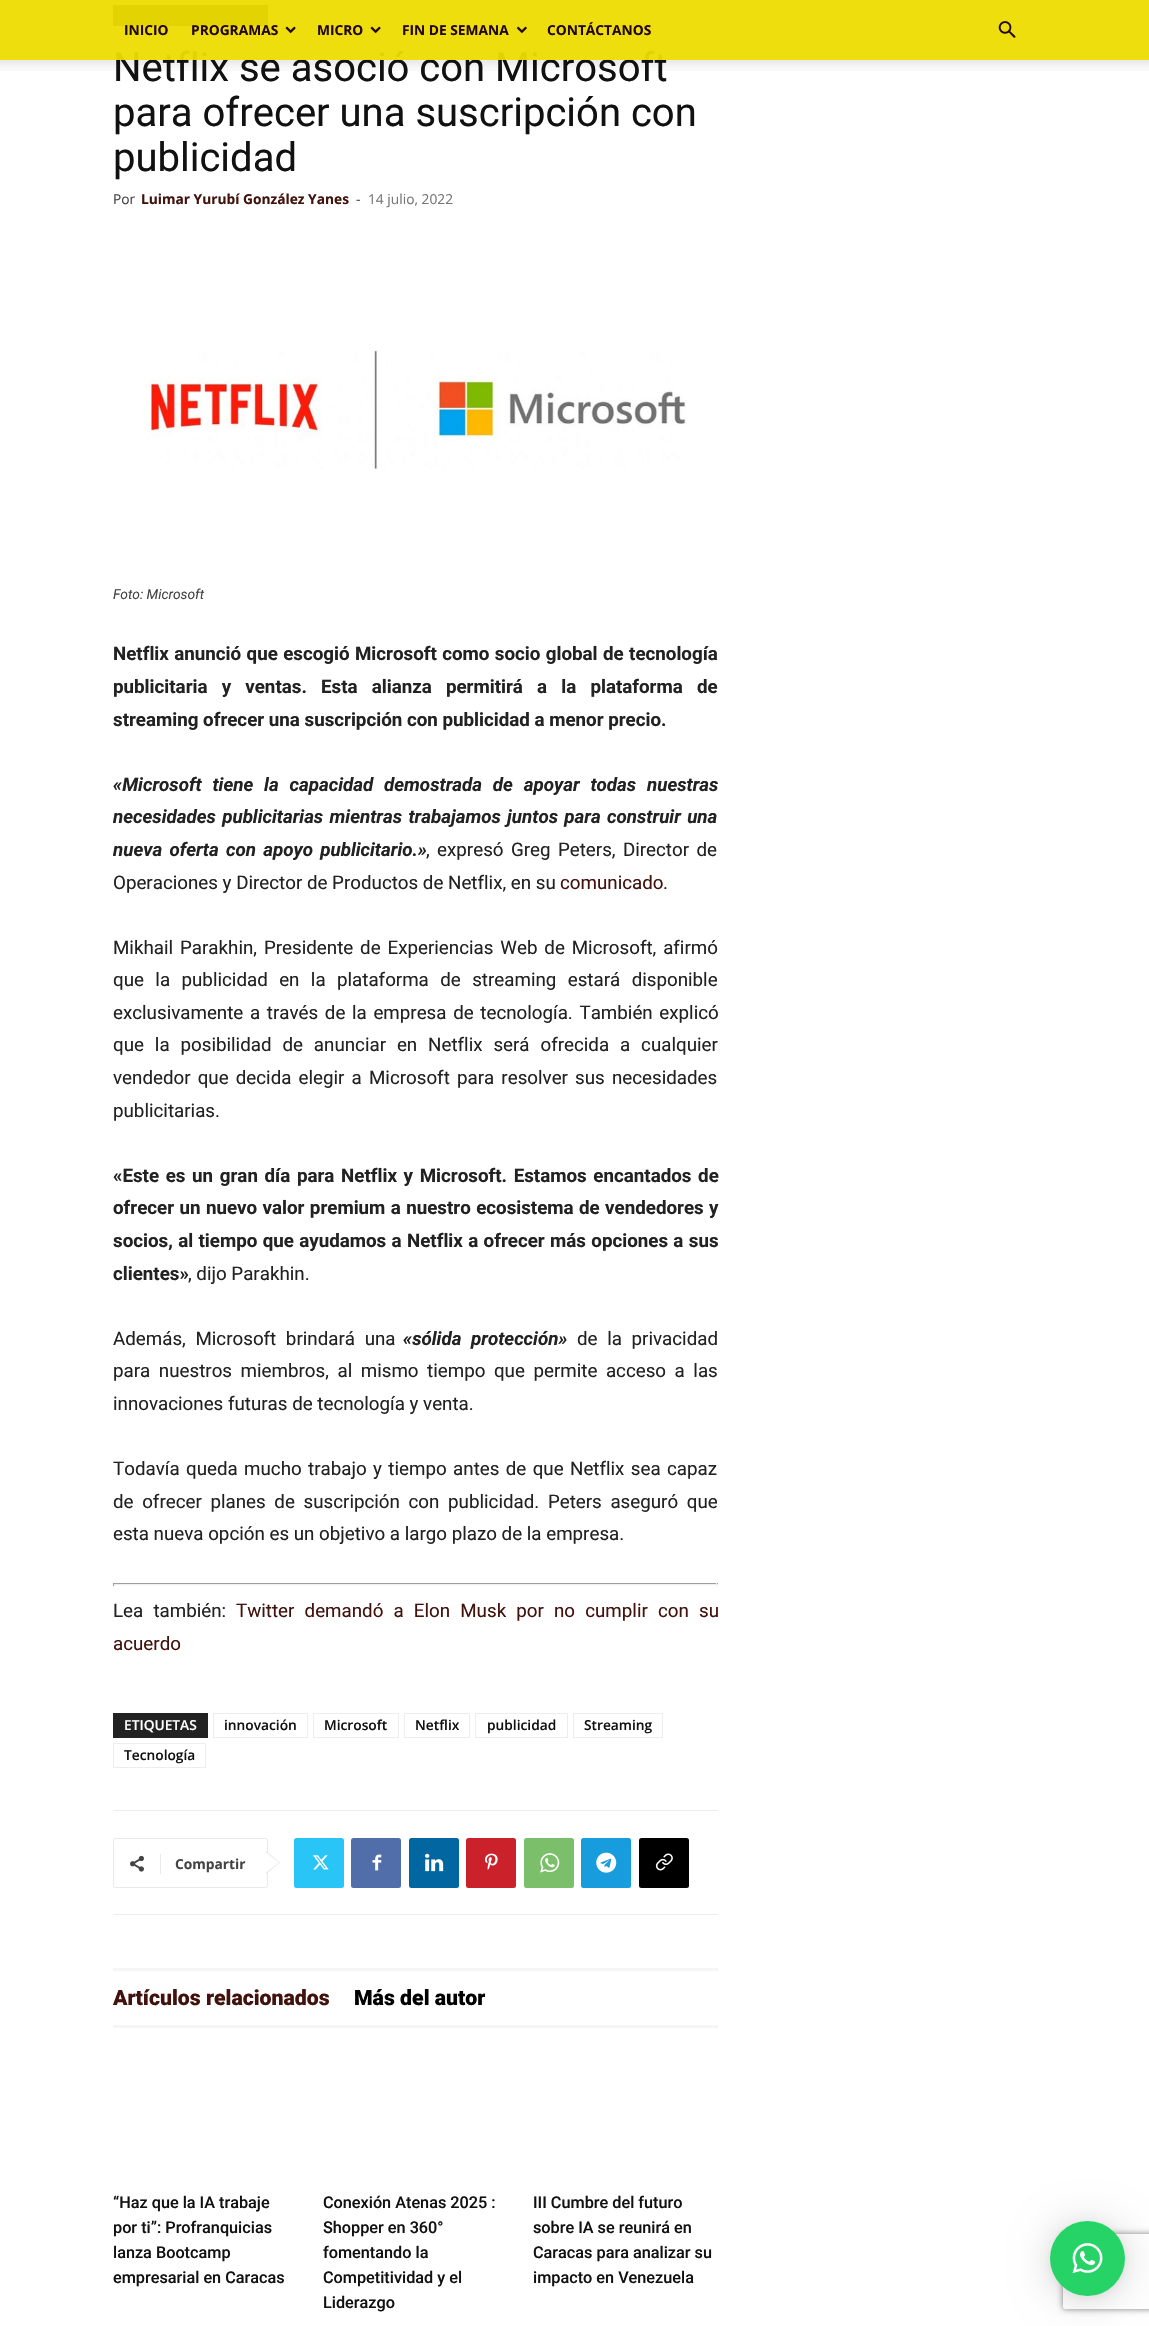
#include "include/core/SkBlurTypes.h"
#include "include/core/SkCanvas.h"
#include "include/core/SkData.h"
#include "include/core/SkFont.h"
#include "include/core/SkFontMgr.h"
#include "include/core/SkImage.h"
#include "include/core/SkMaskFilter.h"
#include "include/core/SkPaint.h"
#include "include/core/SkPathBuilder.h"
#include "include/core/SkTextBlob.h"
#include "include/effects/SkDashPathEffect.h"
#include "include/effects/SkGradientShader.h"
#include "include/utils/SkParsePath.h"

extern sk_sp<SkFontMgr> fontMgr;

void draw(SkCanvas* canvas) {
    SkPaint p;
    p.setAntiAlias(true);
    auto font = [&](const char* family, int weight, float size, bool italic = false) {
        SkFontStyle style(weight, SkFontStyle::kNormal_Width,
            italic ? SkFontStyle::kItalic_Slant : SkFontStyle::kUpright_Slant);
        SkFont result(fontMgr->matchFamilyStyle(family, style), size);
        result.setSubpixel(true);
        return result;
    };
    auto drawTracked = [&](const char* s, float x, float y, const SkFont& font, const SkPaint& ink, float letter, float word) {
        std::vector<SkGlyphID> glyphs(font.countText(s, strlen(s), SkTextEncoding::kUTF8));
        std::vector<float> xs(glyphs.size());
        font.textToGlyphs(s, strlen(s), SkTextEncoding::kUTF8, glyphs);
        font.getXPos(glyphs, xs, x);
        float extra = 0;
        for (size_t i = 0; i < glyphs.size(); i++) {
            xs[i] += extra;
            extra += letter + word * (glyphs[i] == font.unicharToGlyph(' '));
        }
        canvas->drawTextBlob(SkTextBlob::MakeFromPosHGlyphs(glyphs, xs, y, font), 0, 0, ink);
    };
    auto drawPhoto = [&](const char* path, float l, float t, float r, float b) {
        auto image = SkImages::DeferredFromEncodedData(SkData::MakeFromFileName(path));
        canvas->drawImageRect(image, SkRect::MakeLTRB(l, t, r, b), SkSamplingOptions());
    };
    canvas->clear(0xFFFFFFFF);
    p.setColor(0xFF222222);
    canvas->drawRect(SkRect::MakeLTRB(113, 5, 268, 26), p);
    auto font1 = font("Roboto", 400, 40);
    p.setColor(0xFF111111);
    canvas->drawString("Netflix se asoció con Microsoft", 113, 81, font1, p);
    p.setColor(0xF2EEDC00);
    canvas->drawRect(SkRect::MakeLTRB(0, 0, 1149, 60), p);
    auto font2 = font("Open Sans", 700, 13.75f);
    p.setColor(0xFF23060E);
    canvas->drawString("INICIO", 124, 35, font2, p);
    canvas->drawString("PROGRAMAS", 191, 35, font2, p);
    drawPhoto("media/1.png", 285, 26, 296, 34);
    canvas->drawString("MICRO", 317, 35, font2, p);
    drawPhoto("media/1.png", 370, 26, 381, 34);
    canvas->drawString("FIN DE SEMANA", 402, 35, font2, p);
    drawPhoto("media/2.png", 516, 26, 527, 34);
    canvas->drawString("CONTÁCTANOS", 547, 35, font2, p);
    drawPhoto("media/3.png", 998, 21, 1016, 38);
    drawPhoto("media/4.png", 0, 60, 1149, 71);
    p.setColor(0xFF111111);
    canvas->drawString("para ofrecer una suscripción con", 113, 126, font1, p);
    canvas->drawString("publicidad", 113, 171, font1, p);
    auto font3 = font("Open Sans", 400, 13.75f);
    p.setColor(0xFF444444);
    canvas->drawString("Por", 113, 204, font3, p);
    p.setColor(0xFF42120D);
    canvas->drawString("Luimar Yurubí González Yanes", 141, 204, font2, p);
    p.setColor(0xFF444444);
    canvas->drawString("-", 356, 204, font3, p);
    p.setColor(0xFF767676);
    canvas->drawString("14 julio, 2022", 368, 204, font3, p);
    drawPhoto("media/5.png", 144, 349, 686, 469);
    auto font4 = font("Roboto", 400, 13.75f, true);
    p.setColor(0xFF444444);
    canvas->drawString("Foto: Microsoft", 113, 599, font4, p);
    auto font5 = font("Roboto", 700, 18.75f);
    p.setColor(0xFF222222);
    drawTracked("Netflix anunció que escogió Microsoft como socio global de tecnología", 113, 660, font5, p, 0, 0.75f);
    drawTracked("publicitaria y ventas. Esta alianza permitirá a la plataforma de", 113, 693, font5, p, 0, 9.5f);
    canvas->drawString("streaming ofrecer una suscripción con publicidad a menor precio.", 113, 726, font5, p);
    auto font6 = font("Roboto", 700, 18.75f, true);
    drawTracked("«Microsoft tiene la capacidad demostrada de apoyar todas nuestras", 113, 791, font6, p, 0, 6.25f);
    drawTracked("necesidades publicitarias mientras trabajamos juntos para construir una", 113, 823, font6, p, 0, 1.75f);
    drawTracked("nueva oferta con apoyo publicitario.»", 113, 856, font6, p, 0, 2.75f);
    auto font7 = font("Roboto", 400, 18.75f);
    drawTracked(", expresó Greg Peters, Director de", 426, 856, font7, p, 0, 2.75f);
    canvas->drawString("Operaciones y Director de Productos de Netflix, en su", 113, 889, font7, p);
    p.setColor(0xFF42120D);
    canvas->drawString("comunicado", 560, 889, font7, p);
    p.setColor(0xFF222222);
    canvas->drawString(".", 663, 889, font7, p);
    drawTracked("Mikhail Parakhin, Presidente de Experiencias Web de Microsoft, afirmó", 113, 954, font7, p, 0, 2.25f);
    drawTracked("que la publicidad en la plataforma de streaming estará disponible", 113, 986, font7, p, 0, 6.75f);
    drawTracked("exclusivamente a través de la empresa de tecnología. También explicó", 113, 1019, font7, p, 0, 2);
    drawTracked("que la posibilidad de anunciar en Netflix será ofrecida a cualquier", 113, 1051, font7, p, 0, 6.25f);
    drawTracked("vendedor que decida elegir a Microsoft para resolver sus necesidades", 113, 1084, font7, p, 0, 2.5f);
    canvas->drawString("publicitarias.", 113, 1117, font7, p);
    drawTracked("«Este es un gran día para Netflix y Microsoft. Estamos encantados de", 113, 1182, font5, p, 0, 2);
    drawTracked("ofrecer un nuevo valor premium a nuestro ecosistema de vendedores y", 113, 1214, font5, p, 0, 0.75f);
    drawTracked("socios, al tiempo que ayudamos a Netflix a ofrecer más opciones a sus", 113, 1247, font5, p, 0, 0.7f);
    canvas->drawString("clientes»", 113, 1280, font5, p);
    canvas->drawString(", dijo Parakhin.", 188, 1280, font7, p);
    drawTracked("Además, Microsoft brindará una", 113, 1345, font7, p, 0, 5);
    drawTracked("«sólida protección»", 403, 1345, font6, p, 0, 5);
    drawTracked("de la privacidad", 577, 1345, font7, p, 0, 5);
    drawTracked("para nuestros miembros, al mismo tiempo que permite acceso a las", 113, 1377, font7, p, 0, 3.9f);
    canvas->drawString("innovaciones futuras de tecnología y venta.", 113, 1410, font7, p);
    drawTracked("Todavía queda mucho trabajo y tiempo antes de que Netflix sea capaz", 113, 1475, font7, p, 0, 1.75f);
    drawTracked("de ofrecer planes de suscripción con publicidad. Peters aseguró que", 113, 1508, font7, p, 0, 4);
    canvas->drawString("esta nueva opción es un objetivo a largo plazo de la empresa.", 113, 1540, font7, p);
    {
        const struct { float l, t, r, b; SkColor color; } items[] = {
            {113, 1583, 718, 1584, 0xFF9F9F9F},
            {716, 1583, 717, 1586, 0xFFEEEEEE},
            {113, 1584, 718, 1585, 0xFFEEEEEE},
            {113, 1583, 114, 1586, 0xFF9F9F9F},
        };
        for (auto [l, t, r, b, color] : items) {
            p.setColor(color);
            canvas->drawRect(SkRect::MakeLTRB(l, t, r, b), p);
        }
    }
    p.setColor(0xFF222222);
    drawTracked("Lea también:", 113, 1617, font7, p, 0, 5.5f);
    p.setColor(0xFF42120D);
    drawTracked("Twitter demandó a Elon Musk por no cumplir con su", 236, 1617, font7, p, 0, 5.5f);
    canvas->drawString("acuerdo", 113, 1650, font7, p);
    p.setColor(0xFF222222);
    canvas->drawRect(SkRect::MakeLTRB(113, 1713, 208, 1738), p);
    auto font8 = font("Open Sans", 600, 13.75f);
    p.setColor(0xFFFFFFFF);
    canvas->drawString("ETIQUETAS", 124, 1730, font8, p);
    p.setStyle(SkPaint::kStroke_Style);
    p.setStrokeWidth(1);
    p.setColor(0xFFEDEDED);
    canvas->drawRect(SkRect::MakeLTRB(213.5f, 1713.5f, 307.5f, 1737.5f), p);
    p.setStyle(SkPaint::kFill_Style);
    p.setColor(0xFF111111);
    canvas->drawString("innovación", 224, 1730, font8, p);
    p.setStyle(SkPaint::kStroke_Style);
    p.setColor(0xFFEDEDED);
    canvas->drawRect(SkRect::MakeLTRB(313.5f, 1713.5f, 398.5f, 1737.5f), p);
    p.setStyle(SkPaint::kFill_Style);
    p.setColor(0xFF111111);
    canvas->drawString("Microsoft", 324, 1730, font8, p);
    p.setStyle(SkPaint::kStroke_Style);
    p.setColor(0xFFEDEDED);
    canvas->drawRect(SkRect::MakeLTRB(404.5f, 1713.5f, 469.5f, 1737.5f), p);
    p.setStyle(SkPaint::kFill_Style);
    p.setColor(0xFF111111);
    canvas->drawString("Netflix", 415, 1730, font8, p);
    p.setStyle(SkPaint::kStroke_Style);
    p.setColor(0xFFEDEDED);
    canvas->drawRect(SkRect::MakeLTRB(475.5f, 1713.5f, 567.5f, 1737.5f), p);
    p.setStyle(SkPaint::kFill_Style);
    p.setColor(0xFF111111);
    canvas->drawString("publicidad", 487, 1730, font8, p);
    p.setStyle(SkPaint::kStroke_Style);
    p.setColor(0xFFEDEDED);
    canvas->drawRect(SkRect::MakeLTRB(573.5f, 1713.5f, 662.5f, 1737.5f), p);
    p.setStyle(SkPaint::kFill_Style);
    p.setColor(0xFF111111);
    canvas->drawString("Streaming", 584, 1730, font8, p);
    p.setStyle(SkPaint::kStroke_Style);
    p.setColor(0xFFEDEDED);
    canvas->drawRect(SkRect::MakeLTRB(113.5f, 1743.5f, 205.5f, 1767.5f), p);
    p.setStyle(SkPaint::kFill_Style);
    p.setColor(0xFF111111);
    canvas->drawString("Tecnología", 124, 1760, font8, p);
    p.setColor(0xFFEDEDED);
    canvas->drawRect(SkRect::MakeLTRB(113, 1810, 718, 1811), p);
    canvas->drawRect(SkRect::MakeLTRB(113, 1914, 718, 1915), p);
    p.setStyle(SkPaint::kStroke_Style);
    p.setColor(0xFFE9E9E9);
    canvas->drawRoundRect(SkRect::MakeLTRB(113.5f, 1838.5f, 267.5f, 1887.5f), 2, 2, p);
    p.setStyle(SkPaint::kFill_Style);
    canvas->drawPath(SkPathBuilder().moveTo(266, 1874).lineTo(266, 1851).lineTo(280, 1862.5f).close().detach(), p);
    drawPhoto("media/6.png", 130, 1855, 144, 1872);
    p.setColor(0xFFEBEBEB);
    canvas->drawRect(SkRect::MakeLTRB(160, 1854, 161, 1874), p);
    p.setColor(0xFF444444);
    canvas->drawString("Compartir", 175, 1869, font2, p);
    p.setColor(0xFFFFFFFF);
    canvas->drawPath(SkPathBuilder().moveTo(266, 1872.5f).lineTo(266, 1852.5f).lineTo(279, 1862.5f).close().detach(), p);
    p.setColor(0xFF29C5F6);
    canvas->drawRoundRect(SkRect::MakeLTRB(294, 1838, 344, 1888), 2.5f, 2.5f, p);
    drawPhoto("media/7.png", 313, 1855, 329, 1870);
    p.setColor(0xFF516EAB);
    canvas->drawRoundRect(SkRect::MakeLTRB(351, 1838, 401, 1888), 2.5f, 2.5f, p);
    drawPhoto("media/8.png", 372, 1854, 382, 1871);
    p.setColor(0xFF0266A0);
    canvas->drawRoundRect(SkRect::MakeLTRB(409, 1838, 459, 1888), 2.5f, 2.5f, p);
    drawPhoto("media/9.png", 425, 1853, 444, 1872);
    p.setColor(0xFFCA212A);
    canvas->drawRoundRect(SkRect::MakeLTRB(466, 1838, 516, 1888), 2.5f, 2.5f, p);
    drawPhoto("media/10.png", 485, 1853, 498, 1870);
    p.setColor(0xFF7BBF6A);
    canvas->drawRoundRect(SkRect::MakeLTRB(524, 1838, 574, 1888), 2.5f, 2.5f, p);
    drawPhoto("media/11.png", 540, 1853, 560, 1873);
    p.setColor(0xFF179CDE);
    canvas->drawRoundRect(SkRect::MakeLTRB(581, 1838, 631, 1888), 2.5f, 2.5f, p);
    drawPhoto("media/12.png", 596, 1852, 617, 1873);
    p.setColor(0xFF000000);
    canvas->drawRoundRect(SkRect::MakeLTRB(639, 1838, 689, 1888), 2.5f, 2.5f, p);
    drawPhoto("media/13.png", 655, 1853, 673, 1871);
    p.setColor(0xFFF5F5F5);
    canvas->drawRect(SkRect::MakeLTRB(113, 1968, 718, 1971), p);
    auto font9 = font("Roboto", 900, 21.25f);
    p.setColor(0xFF42120D);
    canvas->drawString("Artículos relacionados", 113, 2005, font9, p);
    p.setColor(0xFF000000);
    canvas->drawString("Más del autor", 354, 2005, font9, p);
    p.setColor(0xFFF5F5F5);
    canvas->drawRect(SkRect::MakeLTRB(113, 2025, 718, 2028), p);
    auto font10 = font("Roboto", 500, 16.25f);
    p.setColor(0xFF111111);
    {
        const struct { const char* s; float x, y; } items[] = {
            {"“Haz que la IA trabaje", 113, 2208},
            {"por ti”: Profranquicias", 113, 2233},
            {"lanza Bootcamp", 113, 2258},
            {"empresarial en Caracas", 113, 2283},
            {"Conexión Atenas 2025 :", 323, 2208},
            {"Shopper en 360°", 323, 2233},
            {"fomentando la", 323, 2258},
            {"Competitividad y el", 323, 2283},
            {"Liderazgo", 323, 2308},
            {"III Cumbre del futuro", 533, 2208},
            {"sobre IA se reunirá en", 533, 2233},
            {"Caracas para analizar su", 533, 2258},
            {"impacto en Venezuela", 533, 2283},
        };
        for (auto [s, x, y] : items) {
            canvas->drawString(s, x, y, font10, p);
        }
    }
    p.setColor(0x29000000);
    p.setMaskFilter(SkMaskFilter::MakeBlur(kNormal_SkBlurStyle, 20));
    canvas->drawRoundRect(SkRect::MakeLTRB(1050, 2224, 1125, 2299), 37.5f, 37.5f, p);
    p.setMaskFilter(nullptr);
    p.setColor(0x0F000000);
    p.setMaskFilter(SkMaskFilter::MakeBlur(kNormal_SkBlurStyle, 4));
    canvas->drawRoundRect(SkRect::MakeLTRB(1050, 2223, 1125, 2298), 37.5f, 37.5f, p);
    p.setMaskFilter(nullptr);
    canvas->save();
    canvas->clipPath(SkPathBuilder(SkPathFillType::kEvenOdd).moveTo(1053, 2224).lineTo(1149, 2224).lineTo(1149, 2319).lineTo(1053, 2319).close().moveTo(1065.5f, 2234).lineTo(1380.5f, 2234).cubicTo(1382, 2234, 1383, 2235, 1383, 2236.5f).lineTo(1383, 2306.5f).cubicTo(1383, 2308, 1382, 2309, 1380.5f, 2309).lineTo(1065.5f, 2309).cubicTo(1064, 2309, 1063, 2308, 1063, 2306.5f).lineTo(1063, 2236.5f).cubicTo(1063, 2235, 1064, 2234, 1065.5f, 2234).close().detach(), true);
    p.setColor(0xFF808080);
    p.setMaskFilter(SkMaskFilter::MakeBlur(kNormal_SkBlurStyle, 3));
    canvas->drawRoundRect(SkRect::MakeLTRB(1063, 2234, 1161, 2309), 2.5f, 2.5f, p);
    p.setMaskFilter(nullptr);
    canvas->restore();
    p.setColor(0xFF25D366);
    canvas->drawCircle(1087.5f, 2258.5f, 37.5f, p);
    drawPhoto("media/14.png", 1072, 2243, 1103, 2274);
}
